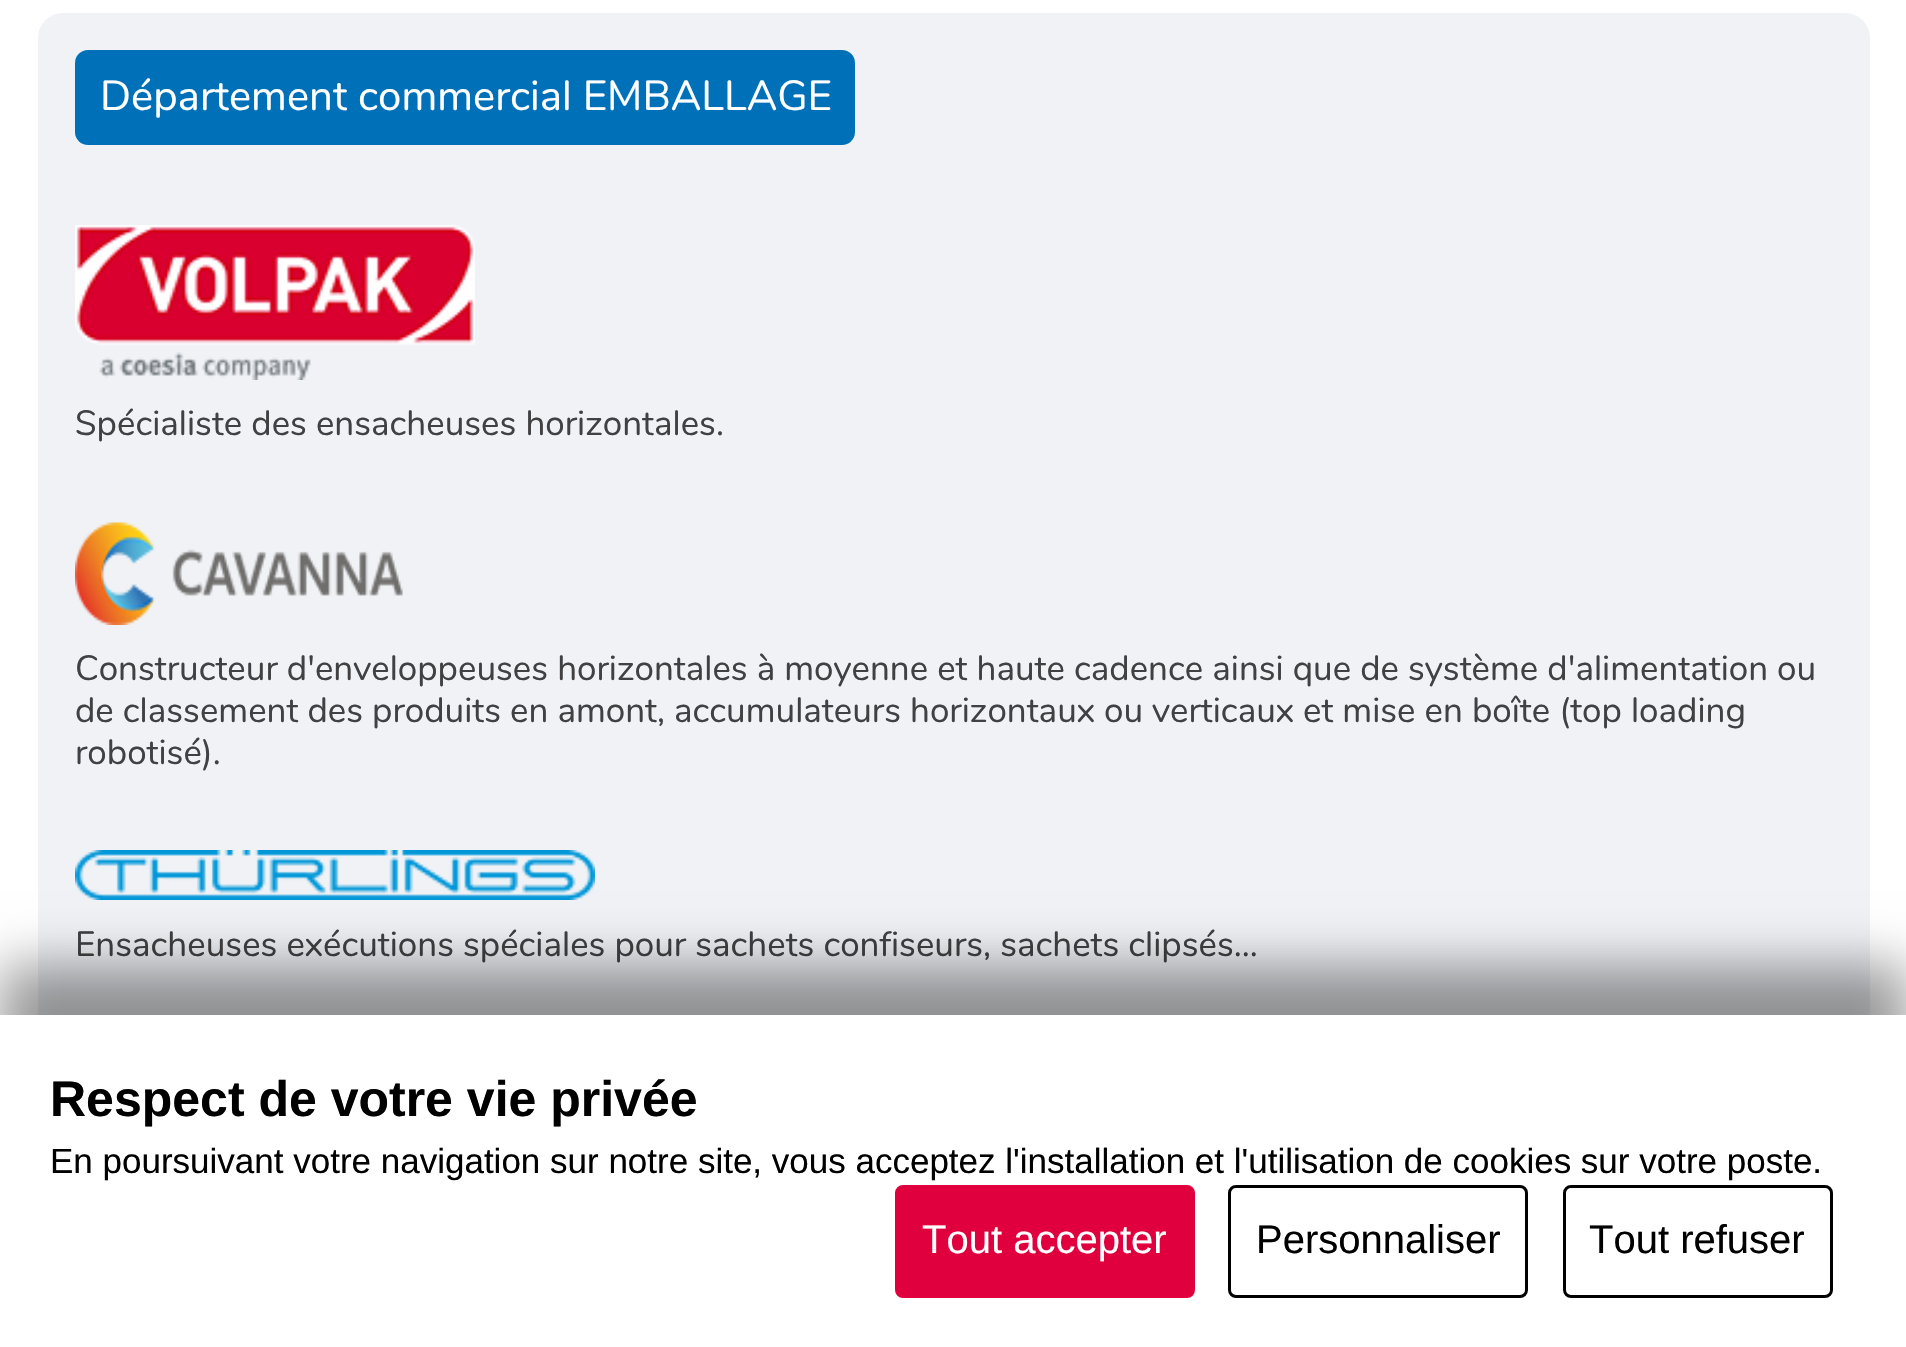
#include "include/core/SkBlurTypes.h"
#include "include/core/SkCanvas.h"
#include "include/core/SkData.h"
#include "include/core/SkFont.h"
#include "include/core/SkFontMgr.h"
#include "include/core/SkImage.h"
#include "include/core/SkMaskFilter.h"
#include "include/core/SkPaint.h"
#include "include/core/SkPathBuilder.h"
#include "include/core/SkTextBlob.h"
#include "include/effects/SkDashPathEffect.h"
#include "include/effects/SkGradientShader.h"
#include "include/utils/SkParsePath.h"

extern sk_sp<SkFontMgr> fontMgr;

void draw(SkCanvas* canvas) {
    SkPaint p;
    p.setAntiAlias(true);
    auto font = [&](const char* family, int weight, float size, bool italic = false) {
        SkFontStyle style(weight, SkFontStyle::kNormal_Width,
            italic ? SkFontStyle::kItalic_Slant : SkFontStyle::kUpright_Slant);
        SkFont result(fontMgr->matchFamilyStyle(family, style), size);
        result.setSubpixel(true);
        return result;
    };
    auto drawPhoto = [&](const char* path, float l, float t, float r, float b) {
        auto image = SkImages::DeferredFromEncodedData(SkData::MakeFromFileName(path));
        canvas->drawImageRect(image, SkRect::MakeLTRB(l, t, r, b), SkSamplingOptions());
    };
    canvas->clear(0xFFFFFFFF);
    p.setColor(0xFFF0F2F6);
    canvas->drawRoundRect(SkRect::MakeLTRB(38, 13, 1870, 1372), 25, 25, p);
    p.setColor(0xFF0071B8);
    canvas->drawRoundRect(SkRect::MakeLTRB(75, 50, 855, 145), 13, 13, p);
    auto font1 = font("Nunito", 400, 42);
    p.setColor(0xFFFFFFFF);
    canvas->drawString("Département commercial EMBALLAGE", 100, 110, font1, p);
    drawPhoto("media/1.png", 75, 225, 475, 380);
    auto font2 = font("Nunito", 400, 35);
    p.setColor(0xFF414042);
    canvas->drawString("Spécialiste des ensacheuses horizontales.", 75, 435, font2, p);
    drawPhoto("media/2.png", 75, 522, 403, 625);
    {
        const struct { const char* s; float x, y; } items[] = {
            {"Constructeur d'enveloppeuses horizontales à moyenne et haute cadence ainsi que de système d'alimentation ou", 75, 680},
            {"de classement des produits en amont, accumulateurs horizontaux ou verticaux et mise en boîte (top loading", 75, 722},
            {"robotisé).", 75, 764},
        };
        for (auto [s, x, y] : items) {
            canvas->drawString(s, x, y, font2, p);
        }
    }
    drawPhoto("media/3.png", 75, 850, 595, 900);
    canvas->drawString("Ensacheuses exécutions spéciales pour sachets confiseurs, sachets clipsés...", 75, 956, font2, p);
    p.setColor(0x66000000);
    p.setMaskFilter(SkMaskFilter::MakeBlur(kNormal_SkBlurStyle, 25));
    canvas->drawRect(SkRect::MakeLTRB(0, 965, 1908, 1298), p);
    p.setMaskFilter(nullptr);
    p.setColor(0xFFFFFFFF);
    canvas->drawRect(SkRect::MakeLTRB(0, 1015, 1906, 1347), p);
    auto font3 = font("Liberation Sans", 700, 50);
    p.setColor(0xFF000000);
    canvas->drawString("Respect de votre vie privée", 50, 1116, font3, p);
    auto font4 = font("Liberation Sans", 400, 35);
    canvas->drawString("En poursuivant votre navigation sur notre site, vous acceptez l'installation et l'utilisation de cookies sur votre poste.", 50, 1173, font4, p);
    p.setColor(0xFFE0003D);
    canvas->drawRoundRect(SkRect::MakeLTRB(896.5f, 1186.5f, 1193.5f, 1296.5f), 6.5f, 6.5f, p);
    p.setStyle(SkPaint::kStroke_Style);
    p.setStrokeWidth(3);
    canvas->drawRoundRect(SkRect::MakeLTRB(896.5f, 1186.5f, 1193.5f, 1296.5f), 6.5f, 6.5f, p);
    auto font5 = font("Liberation Sans", 400, 40);
    p.setStyle(SkPaint::kFill_Style);
    p.setColor(0xFFFFFFFF);
    canvas->drawString("Tout accepter", 922, 1253, font5, p);
    p.setStyle(SkPaint::kStroke_Style);
    p.setColor(0xFF000000);
    canvas->drawRoundRect(SkRect::MakeLTRB(1229.5f, 1186.5f, 1526.5f, 1296.5f), 6.5f, 6.5f, p);
    p.setStyle(SkPaint::kFill_Style);
    canvas->drawString("Personnaliser", 1256, 1253, font5, p);
    p.setStyle(SkPaint::kStroke_Style);
    canvas->drawRoundRect(SkRect::MakeLTRB(1564.5f, 1186.5f, 1831.5f, 1296.5f), 6.5f, 6.5f, p);
    p.setStyle(SkPaint::kFill_Style);
    canvas->drawString("Tout refuser", 1589, 1253, font5, p);
}
